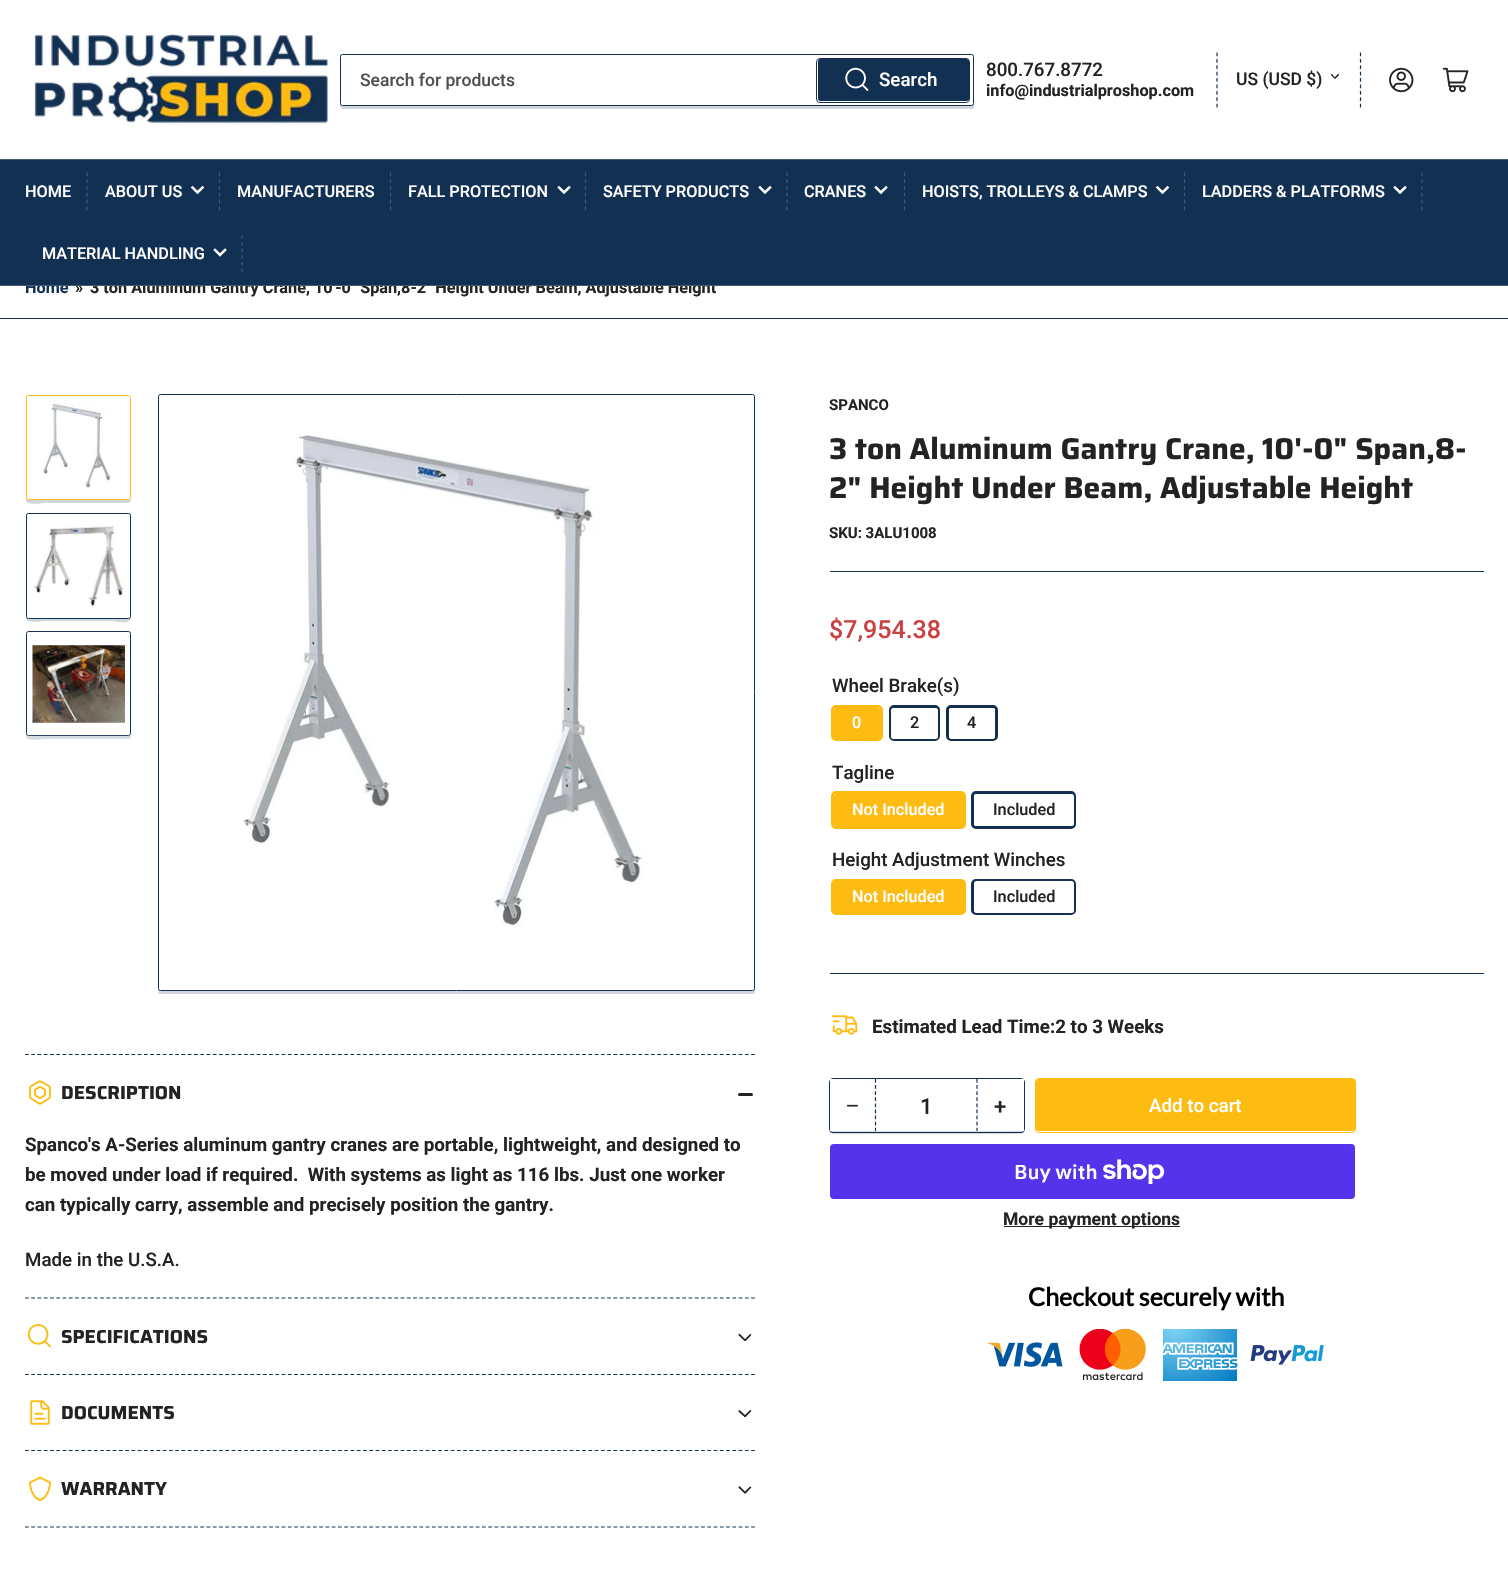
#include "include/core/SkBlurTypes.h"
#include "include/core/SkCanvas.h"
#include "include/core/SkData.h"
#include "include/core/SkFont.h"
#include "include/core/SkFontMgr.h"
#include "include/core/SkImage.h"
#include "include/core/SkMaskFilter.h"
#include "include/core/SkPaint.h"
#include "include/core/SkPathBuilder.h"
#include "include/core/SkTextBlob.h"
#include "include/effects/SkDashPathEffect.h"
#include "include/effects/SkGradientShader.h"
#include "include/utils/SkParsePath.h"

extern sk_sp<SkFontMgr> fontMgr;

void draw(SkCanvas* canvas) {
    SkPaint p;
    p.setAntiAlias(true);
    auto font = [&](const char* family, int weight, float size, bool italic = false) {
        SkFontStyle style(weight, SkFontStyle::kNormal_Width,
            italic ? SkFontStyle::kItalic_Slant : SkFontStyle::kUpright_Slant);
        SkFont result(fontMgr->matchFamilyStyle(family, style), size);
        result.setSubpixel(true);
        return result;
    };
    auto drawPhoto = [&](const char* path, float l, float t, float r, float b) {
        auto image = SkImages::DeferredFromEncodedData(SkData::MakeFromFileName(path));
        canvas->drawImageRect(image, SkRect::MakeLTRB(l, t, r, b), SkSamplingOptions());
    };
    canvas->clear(0xFFFFFFFF);
    drawPhoto("media/1.png", 34, 34, 328, 126);
    p.setColor(0xFFD0D6DC);
    canvas->drawPath(SkPathBuilder().moveTo(340, 104).cubicTo(340, 106, 340, 108, 342, 109).lineTo(972, 109).cubicTo(976, 109, 974, 99, 974, 98).lineTo(974, 57).lineTo(974, 104).cubicTo(974, 105, 973, 106, 971, 106).lineTo(342, 106).cubicTo(341, 106, 340, 105, 340, 104).close().detach(), p);
    p.setColor(0xFFFFFFFF);
    canvas->drawRoundRect(SkRect::MakeLTRB(340.5f, 54.5f, 973.5f, 105.5f), 2, 2, p);
    p.setStyle(SkPaint::kStroke_Style);
    p.setStrokeWidth(1);
    p.setColor(0xFF123052);
    canvas->drawRoundRect(SkRect::MakeLTRB(340.5f, 54.5f, 973.5f, 105.5f), 2, 2, p);
    auto font1 = font("Roboto", 500, 17.5f);
    p.setStyle(SkPaint::kFill_Style);
    p.setColor(0xFF4F4F4F);
    canvas->drawString("Search for products", 360, 86, font1, p);
    p.setStyle(SkPaint::kStroke_Style);
    p.setColor(0xFF123052);
    canvas->drawRoundRect(SkRect::MakeLTRB(816.5f, 58.5f, 969.5f, 102.5f), 3.5f, 3.5f, p);
    p.setStyle(SkPaint::kFill_Style);
    canvas->drawRoundRect(SkRect::MakeLTRB(818, 59, 969, 101), 2.5f, 2.5f, p);
    drawPhoto("media/2.png", 845, 67, 869, 91);
    auto font2 = font("Roboto", 500, 18.75f);
    p.setColor(0xFFFFFFFF);
    canvas->drawString("Search", 879, 86, font2, p);
    p.setColor(0xFF232323);
    canvas->drawString("800.767.8772", 986, 76, font2, p);
    auto font3 = font("Roboto", 700, 16.25f);
    canvas->drawString("info@industrialproshop.com", 986, 96, font3, p);
    p.setStyle(SkPaint::kStroke_Style);
    p.setStrokeWidth(1.2f);
    p.setColor(0xFF123052);
    p.setPathEffect(SkDashPathEffect::Make({{3.75f, 2.65f}}, 0));
    canvas->drawPath(SkPathBuilder().moveTo(1360.5f, 52.5f).lineTo(1360.5f, 107.5f).detach(), p);
    p.setPathEffect(nullptr);
    p.setPathEffect(SkDashPathEffect::Make({{3.75f, 2.65f}}, 0));
    canvas->drawPath(SkPathBuilder().moveTo(1217, 52.5f).lineTo(1217, 107.5f).detach(), p);
    p.setPathEffect(nullptr);
    p.setStyle(SkPaint::kFill_Style);
    p.setColor(0xFF232323);
    canvas->drawString("US (USD $)", 1236, 85, font1, p);
    canvas->drawPath(SkPathBuilder().moveTo(1332, 74).lineTo(1334.5f, 77).cubicTo(1336, 78.5f, 1335.5f, 79.5f, 1334, 78).cubicTo(1333.5f, 77.5f, 1330, 74.5f, 1331, 74).close().detach(), p);
    canvas->drawPath(SkPathBuilder().moveTo(1334.5f, 77.5f).lineTo(1337.5f, 74.5f).cubicTo(1339, 73, 1340, 74, 1338.5f, 75.5f).cubicTo(1338, 76, 1335.5f, 79.5f, 1334.5f, 78.5f).close().detach(), p);
    drawPhoto("media/3.png", 1389, 67, 1414, 93);
    drawPhoto("media/4.png", 1442, 67, 1469, 93);
    canvas->drawString("3 ton Aluminum Gantry Crane, 10'-0\" Span,8-2\" Height Under Beam, Adjustable Height", 90, 293, font3, p);
    p.setColor(0xFF123052);
    canvas->drawRect(SkRect::MakeLTRB(0, 160, 1508, 285), p);
    p.setColor(0xFF415975);
    canvas->drawRect(SkRect::MakeLTRB(0, 159, 1508, 160), p);
    p.setColor(0xFF123052);
    canvas->drawString("Home", 25, 293, font3, p);
    p.setColor(0xFF232323);
    canvas->drawString("»", 75, 293, font3, p);
    p.setColor(0xFF415975);
    canvas->drawRect(SkRect::MakeLTRB(0, 285, 1508, 286), p);
    auto font4 = font("Roboto", 500, 16.25f);
    p.setColor(0xFFFFFFFF);
    canvas->drawString("HOME", 25, 197, font4, p);
    p.setStyle(SkPaint::kStroke_Style);
    p.setColor(0xFF415975);
    p.setPathEffect(SkDashPathEffect::Make({{3.75f, 3}}, 0));
    canvas->drawPath(SkPathBuilder().moveTo(87, 172.5f).lineTo(87, 210).detach(), p);
    p.setPathEffect(nullptr);
    p.setStyle(SkPaint::kFill_Style);
    p.setColor(0xFFFFFFFF);
    canvas->drawString("ABOUT US", 105, 197, font4, p);
    p.setStyle(SkPaint::kStroke_Style);
    p.setStrokeWidth(2.5f);
    p.setStrokeCap(SkPaint::kSquare_Cap);
    canvas->drawPath(SkPathBuilder().moveTo(202.5f, 187.5f).lineTo(197.5f, 192.5f).lineTo(192.5f, 187.5f).detach(), p);
    p.setStrokeWidth(1.2f);
    p.setStrokeCap(SkPaint::kButt_Cap);
    p.setColor(0xFF415975);
    p.setPathEffect(SkDashPathEffect::Make({{3.75f, 3}}, 0));
    canvas->drawPath(SkPathBuilder().moveTo(219.5f, 172.5f).lineTo(219.5f, 210).detach(), p);
    p.setPathEffect(nullptr);
    p.setStyle(SkPaint::kFill_Style);
    p.setColor(0xFFFFFFFF);
    canvas->drawString("MANUFACTURERS", 237, 197, font4, p);
    p.setStyle(SkPaint::kStroke_Style);
    p.setColor(0xFF415975);
    p.setPathEffect(SkDashPathEffect::Make({{3.75f, 3}}, 0));
    canvas->drawPath(SkPathBuilder().moveTo(390.5f, 172.5f).lineTo(390.5f, 210).detach(), p);
    p.setPathEffect(nullptr);
    p.setStyle(SkPaint::kFill_Style);
    p.setColor(0xFFFFFFFF);
    canvas->drawString("FALL PROTECTION", 408, 197, font4, p);
    p.setStyle(SkPaint::kStroke_Style);
    p.setStrokeWidth(2.5f);
    p.setStrokeCap(SkPaint::kSquare_Cap);
    canvas->drawPath(SkPathBuilder().moveTo(569, 187.5f).lineTo(564, 192.5f).lineTo(559, 187.5f).detach(), p);
    p.setStrokeWidth(1.2f);
    p.setStrokeCap(SkPaint::kButt_Cap);
    p.setColor(0xFF415975);
    p.setPathEffect(SkDashPathEffect::Make({{3.75f, 3}}, 0));
    canvas->drawPath(SkPathBuilder().moveTo(585.5f, 172.5f).lineTo(585.5f, 210).detach(), p);
    p.setPathEffect(nullptr);
    p.setStyle(SkPaint::kFill_Style);
    p.setColor(0xFFFFFFFF);
    canvas->drawString("SAFETY PRODUCTS", 603, 197, font4, p);
    p.setStyle(SkPaint::kStroke_Style);
    p.setStrokeWidth(2.5f);
    p.setStrokeCap(SkPaint::kSquare_Cap);
    canvas->drawPath(SkPathBuilder().moveTo(770, 187.5f).lineTo(765, 192.5f).lineTo(760, 187.5f).detach(), p);
    p.setStrokeWidth(1.2f);
    p.setStrokeCap(SkPaint::kButt_Cap);
    p.setColor(0xFF415975);
    p.setPathEffect(SkDashPathEffect::Make({{3.75f, 3}}, 0));
    canvas->drawPath(SkPathBuilder().moveTo(787, 172.5f).lineTo(787, 210).detach(), p);
    p.setPathEffect(nullptr);
    p.setStyle(SkPaint::kFill_Style);
    p.setColor(0xFFFFFFFF);
    canvas->drawString("CRANES", 804, 197, font4, p);
    p.setStyle(SkPaint::kStroke_Style);
    p.setStrokeWidth(2.5f);
    p.setStrokeCap(SkPaint::kSquare_Cap);
    canvas->drawPath(SkPathBuilder().moveTo(886, 187.5f).lineTo(881, 192.5f).lineTo(876, 187.5f).detach(), p);
    p.setStrokeWidth(1.2f);
    p.setStrokeCap(SkPaint::kButt_Cap);
    p.setColor(0xFF415975);
    p.setPathEffect(SkDashPathEffect::Make({{3.75f, 3}}, 0));
    canvas->drawPath(SkPathBuilder().moveTo(904.5f, 172.5f).lineTo(904.5f, 210).detach(), p);
    p.setPathEffect(nullptr);
    p.setStyle(SkPaint::kFill_Style);
    p.setColor(0xFFFFFFFF);
    canvas->drawString("HOISTS, TROLLEYS & CLAMPS", 922, 197, font4, p);
    p.setStyle(SkPaint::kStroke_Style);
    p.setStrokeWidth(2.5f);
    p.setStrokeCap(SkPaint::kSquare_Cap);
    canvas->drawPath(SkPathBuilder().moveTo(1167.5f, 187.5f).lineTo(1162.5f, 192.5f).lineTo(1157.5f, 187.5f).detach(), p);
    p.setStrokeWidth(1.2f);
    p.setStrokeCap(SkPaint::kButt_Cap);
    p.setColor(0xFF415975);
    p.setPathEffect(SkDashPathEffect::Make({{3.75f, 3}}, 0));
    canvas->drawPath(SkPathBuilder().moveTo(1184.5f, 172.5f).lineTo(1184.5f, 210).detach(), p);
    p.setPathEffect(nullptr);
    p.setStyle(SkPaint::kFill_Style);
    p.setColor(0xFFFFFFFF);
    canvas->drawString("LADDERS & PLATFORMS", 1202, 197, font4, p);
    p.setStyle(SkPaint::kStroke_Style);
    p.setStrokeWidth(2.5f);
    p.setStrokeCap(SkPaint::kSquare_Cap);
    canvas->drawPath(SkPathBuilder().moveTo(1405, 187.5f).lineTo(1400, 192.5f).lineTo(1395, 187.5f).detach(), p);
    p.setStrokeWidth(1.2f);
    p.setStrokeCap(SkPaint::kButt_Cap);
    p.setColor(0xFF415975);
    p.setPathEffect(SkDashPathEffect::Make({{3.75f, 3}}, 0));
    canvas->drawPath(SkPathBuilder().moveTo(1422, 172.5f).lineTo(1422, 210).detach(), p);
    p.setPathEffect(nullptr);
    p.setStyle(SkPaint::kFill_Style);
    p.setColor(0xFFFFFFFF);
    canvas->drawString("MATERIAL HANDLING", 42, 259, font4, p);
    p.setStyle(SkPaint::kStroke_Style);
    p.setStrokeWidth(2.5f);
    p.setStrokeCap(SkPaint::kSquare_Cap);
    canvas->drawPath(SkPathBuilder().moveTo(225, 250).lineTo(220, 255).lineTo(215, 250).detach(), p);
    p.setStrokeWidth(1.2f);
    p.setStrokeCap(SkPaint::kButt_Cap);
    p.setColor(0xFF415975);
    p.setPathEffect(SkDashPathEffect::Make({{3.75f, 3}}, 0));
    canvas->drawPath(SkPathBuilder().moveTo(242, 235).lineTo(242, 272.5f).detach(), p);
    p.setPathEffect(nullptr);
    p.setStyle(SkPaint::kFill_Style);
    p.setColor(0xFF123052);
    canvas->drawRect(SkRect::MakeLTRB(0, 318, 1508, 319), p);
    p.setColor(0xFFD0D6DC);
    canvas->drawPath(SkPathBuilder().moveTo(26, 399).lineTo(26, 500).cubicTo(26, 506, 41, 503, 45, 503).lineTo(128, 503).cubicTo(131, 503, 131, 500, 131, 499).cubicTo(131, 499, 130, 500, 129, 500).lineTo(29, 500).cubicTo(27, 500, 26, 499, 26, 498).close().detach(), p);
    p.setColor(0xFFFFFFFF);
    canvas->drawRoundRect(SkRect::MakeLTRB(26.5f, 395.5f, 130.5f, 499.5f), 2, 2, p);
    p.setStyle(SkPaint::kStroke_Style);
    p.setStrokeWidth(1);
    p.setColor(0xFFFEBB12);
    canvas->drawRoundRect(SkRect::MakeLTRB(26.5f, 395.5f, 130.5f, 499.5f), 2, 2, p);
    drawPhoto("media/5.png", 42, 403, 111, 488);
    p.setStyle(SkPaint::kFill_Style);
    p.setColor(0xFFD0D6DC);
    canvas->drawPath(SkPathBuilder().moveTo(26, 516).lineTo(26, 618).cubicTo(26, 624, 41, 621, 45, 621).lineTo(112, 621).cubicTo(115, 621, 131, 626, 131, 617).cubicTo(131, 618, 130, 619, 129, 619).lineTo(29, 619).cubicTo(27, 619, 26, 618, 26, 616).close().detach(), p);
    p.setColor(0xFFFFFFFF);
    canvas->drawRoundRect(SkRect::MakeLTRB(26.5f, 513.5f, 130.5f, 618.5f), 2, 2, p);
    p.setStyle(SkPaint::kStroke_Style);
    p.setColor(0xFF123052);
    canvas->drawRoundRect(SkRect::MakeLTRB(26.5f, 513.5f, 130.5f, 618.5f), 2, 2, p);
    drawPhoto("media/6.png", 34, 525, 125, 606);
    p.setStyle(SkPaint::kFill_Style);
    p.setColor(0xFFD0D6DC);
    canvas->drawPath(SkPathBuilder().moveTo(26, 635).lineTo(26, 736).cubicTo(26, 742, 41, 739, 45, 739).lineTo(128, 739).cubicTo(131, 739, 131, 737, 131, 735).cubicTo(131, 736, 130, 736, 129, 736).lineTo(29, 736).cubicTo(27, 736, 26, 735, 26, 734).close().detach(), p);
    p.setColor(0xFFFFFFFF);
    canvas->drawRoundRect(SkRect::MakeLTRB(26.5f, 631.5f, 130.5f, 735.5f), 2, 2, p);
    p.setStyle(SkPaint::kStroke_Style);
    p.setColor(0xFF123052);
    canvas->drawRoundRect(SkRect::MakeLTRB(26.5f, 631.5f, 130.5f, 735.5f), 2, 2, p);
    drawPhoto("media/7.png", 32, 645, 125, 723);
    p.setStyle(SkPaint::kFill_Style);
    {
        const SkColor colors[] = {0xFFFFFFFF, 0x00FFFFFF};
        const float stops[] = {0, 1};
        const SkPoint ends[] = {{79, 775}, {79, 731}};
        p.setShader(SkGradientShader::MakeLinear(ends, colors, stops, 2, SkTileMode::kClamp));
        p.setAlpha(255);
    }
    canvas->drawRect(SkRect::MakeLTRB(26, 732, 131, 740), p);
    p.setShader(nullptr);
    p.setColor(0xFFD0D6DC);
    canvas->drawPath(SkPathBuilder().moveTo(158, 990).lineTo(158, 992).cubicTo(158, 993, 159, 994, 160, 994).lineTo(752, 994).cubicTo(754, 994, 755, 993, 755, 992).lineTo(755, 989).cubicTo(755, 990, 754, 991, 752, 991).lineTo(160, 991).close().detach(), p);
    p.setColor(0xFFFFFFFF);
    canvas->drawRoundRect(SkRect::MakeLTRB(158.5f, 394.5f, 754.5f, 990.5f), 2, 2, p);
    p.setStyle(SkPaint::kStroke_Style);
    p.setColor(0xFF123052);
    canvas->drawRoundRect(SkRect::MakeLTRB(158.5f, 394.5f, 754.5f, 990.5f), 2, 2, p);
    drawPhoto("media/8.png", 243, 434, 644, 928);
    p.setStyle(SkPaint::kFill_Style);
    canvas->drawRect(SkRect::MakeLTRB(830, 571, 1484, 572), p);
    auto font5 = font("Roboto", 700, 15);
    p.setColor(0xFF232323);
    canvas->drawString("SPANCO", 829, 410, font5, p);
    auto font6 = font("Saira", 700, 30);
    canvas->drawString("3 ton Aluminum Gantry Crane, 10'-0\" Span,8-", 829, 459, font6, p);
    canvas->drawString("2\" Height Under Beam, Adjustable Height", 829, 498, font6, p);
    canvas->drawString("SKU: 3ALU1008", 829, 538, font5, p);
    auto font7 = font("Roboto", 500, 25);
    p.setColor(0xFFCA4141);
    canvas->drawString("$7,954.38", 829, 638, font7, p);
    p.setColor(0xFF232323);
    canvas->drawString("Wheel Brake(s)", 832, 692, font2, p);
    p.setStyle(SkPaint::kStroke_Style);
    p.setStrokeWidth(3);
    p.setColor(0xFFFEBB12);
    canvas->drawRoundRect(SkRect::MakeLTRB(832.5f, 706.5f, 881.5f, 739.5f), 3.5f, 3.5f, p);
    p.setStyle(SkPaint::kFill_Style);
    canvas->drawRoundRect(SkRect::MakeLTRB(834, 708, 880, 739), 2.5f, 2.5f, p);
    p.setColor(0xFFFFFFFF);
    canvas->drawString("0", 852, 728, font4, p);
    p.setStyle(SkPaint::kStroke_Style);
    p.setColor(0xFF123052);
    canvas->drawRoundRect(SkRect::MakeLTRB(890.5f, 706.5f, 938.5f, 739.5f), 3.5f, 3.5f, p);
    p.setStyle(SkPaint::kFill_Style);
    p.setColor(0xFFFFFFFF);
    canvas->drawRoundRect(SkRect::MakeLTRB(891, 708, 938, 739), 2.5f, 2.5f, p);
    p.setColor(0xFF232323);
    canvas->drawString("2", 910, 728, font4, p);
    p.setStyle(SkPaint::kStroke_Style);
    p.setColor(0xFF123052);
    canvas->drawRoundRect(SkRect::MakeLTRB(947.5f, 706.5f, 996.5f, 739.5f), 3.5f, 3.5f, p);
    p.setStyle(SkPaint::kFill_Style);
    p.setColor(0xFFFFFFFF);
    canvas->drawRoundRect(SkRect::MakeLTRB(949, 708, 995, 739), 2.5f, 2.5f, p);
    p.setColor(0xFF232323);
    canvas->drawString("4", 967, 728, font4, p);
    canvas->drawString("Tagline", 832, 779, font2, p);
    p.setStyle(SkPaint::kStroke_Style);
    p.setColor(0xFFFEBB12);
    canvas->drawRoundRect(SkRect::MakeLTRB(832.5f, 792.5f, 964.5f, 827.5f), 3.5f, 3.5f, p);
    p.setStyle(SkPaint::kFill_Style);
    canvas->drawRoundRect(SkRect::MakeLTRB(834, 794, 964, 826), 2.5f, 2.5f, p);
    p.setColor(0xFFFFFFFF);
    canvas->drawString("Not Included", 852, 815, font4, p);
    p.setStyle(SkPaint::kStroke_Style);
    p.setColor(0xFF123052);
    canvas->drawRoundRect(SkRect::MakeLTRB(972.5f, 792.5f, 1074.5f, 827.5f), 3.5f, 3.5f, p);
    p.setStyle(SkPaint::kFill_Style);
    p.setColor(0xFFFFFFFF);
    canvas->drawRoundRect(SkRect::MakeLTRB(974, 794, 1074, 826), 2.5f, 2.5f, p);
    p.setColor(0xFF232323);
    canvas->drawString("Included", 993, 815, font4, p);
    canvas->drawString("Height Adjustment Winches", 832, 866, font2, p);
    p.setStyle(SkPaint::kStroke_Style);
    p.setColor(0xFFFEBB12);
    canvas->drawRoundRect(SkRect::MakeLTRB(832.5f, 880.5f, 964.5f, 913.5f), 3.5f, 3.5f, p);
    p.setStyle(SkPaint::kFill_Style);
    canvas->drawRoundRect(SkRect::MakeLTRB(834, 881, 964, 913), 2.5f, 2.5f, p);
    p.setColor(0xFFFFFFFF);
    canvas->drawString("Not Included", 852, 902, font4, p);
    p.setStyle(SkPaint::kStroke_Style);
    p.setColor(0xFF123052);
    canvas->drawRoundRect(SkRect::MakeLTRB(972.5f, 880.5f, 1074.5f, 913.5f), 3.5f, 3.5f, p);
    p.setStyle(SkPaint::kFill_Style);
    p.setColor(0xFFFFFFFF);
    canvas->drawRoundRect(SkRect::MakeLTRB(974, 881, 1074, 913), 2.5f, 2.5f, p);
    p.setColor(0xFF232323);
    canvas->drawString("Included", 993, 902, font4, p);
    p.setColor(0xFF123052);
    canvas->drawRect(SkRect::MakeLTRB(830, 973, 1484, 974), p);
    drawPhoto("media/9.png", 831, 1015, 858, 1035);
    auto font8 = font("Roboto", 700, 18.75f);
    p.setColor(0xFF232323);
    canvas->drawString("Estimated Lead Time:2 to 3 Weeks", 872, 1033, font8, p);
    p.setColor(0xFFD0D6DC);
    canvas->drawPath(SkPathBuilder().moveTo(830, 1129).lineTo(830, 1132).cubicTo(830, 1133, 831, 1134, 832, 1134).lineTo(1022, 1134).cubicTo(1023, 1134, 1024, 1133, 1024, 1132).lineTo(1024, 1082).lineTo(1024, 1129).cubicTo(1024, 1130, 1023, 1131, 1021, 1131).lineTo(832, 1131).cubicTo(831, 1131, 830, 1130, 830, 1129).close().detach(), p);
    p.setStyle(SkPaint::kStroke_Style);
    p.setStrokeWidth(1);
    p.setColor(0xFF123052);
    canvas->drawRoundRect(SkRect::MakeLTRB(829.5f, 1078.5f, 1024.5f, 1132.5f), 3.5f, 3.5f, p);
    p.setStyle(SkPaint::kFill_Style);
    p.setColor(0xFFFFFFFF);
    canvas->drawRect(SkRect::MakeLTRB(830, 1079, 833, 1131), p);
    auto font9 = font("Liberation Sans", 400, 22);
    p.setColor(0xFF232323);
    canvas->drawString("−", 846, 1113, font9, p);
    p.setStyle(SkPaint::kStroke_Style);
    p.setStrokeWidth(1.2f);
    p.setColor(0xFF123052);
    p.setPathEffect(SkDashPathEffect::Make({{3.75f, 2.35f}}, 0));
    canvas->drawPath(SkPathBuilder().moveTo(977, 1079).lineTo(977, 1131).detach(), p);
    p.setPathEffect(nullptr);
    p.setPathEffect(SkDashPathEffect::Make({{3.75f, 2.35f}}, 0));
    canvas->drawPath(SkPathBuilder().moveTo(875.5f, 1079).lineTo(875.5f, 1131).detach(), p);
    p.setPathEffect(nullptr);
    auto font10 = font("Roboto", 500, 22);
    p.setStyle(SkPaint::kFill_Style);
    p.setColor(0xFF232323);
    canvas->drawString("1", 920, 1114, font10, p);
    p.setColor(0xFFFFFFFF);
    canvas->drawRect(SkRect::MakeLTRB(1021, 1079, 1024, 1131), p);
    p.setColor(0xFF232323);
    canvas->drawString("+", 994, 1114, font10, p);
    p.setStyle(SkPaint::kStroke_Style);
    p.setStrokeWidth(1);
    p.setColor(0xFFFEBB12);
    canvas->drawRoundRect(SkRect::MakeLTRB(1035.5f, 1078.5f, 1355.5f, 1132.5f), 3.5f, 3.5f, p);
    p.setStyle(SkPaint::kFill_Style);
    canvas->drawRoundRect(SkRect::MakeLTRB(1036, 1079, 1355, 1131), 2.5f, 2.5f, p);
    p.setColor(0xFFFFFFFF);
    canvas->drawString("Add to cart", 1149, 1112, font2, p);
    p.setColor(0xFF5433EB);
    canvas->drawRoundRect(SkRect::MakeLTRB(830, 1144, 1355, 1199), 4, 4, p);
    auto font11 = font("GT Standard", 600, 20);
    p.setColor(0xFFFFFFFF);
    canvas->drawString("Buy with", 1014, 1179, font11, p);
    drawPhoto("media/10.png", 1103, 1159, 1165, 1184);
    p.setColor(0xFF232323);
    canvas->drawRect(SkRect::MakeLTRB(1004, 1226, 1180, 1227), p);
    auto font12 = font("Roboto", 700, 17.5f);
    canvas->drawString("More payment options", 1003, 1225, font12, p);
    auto font13 = font("Lato", 700, 25);
    p.setColor(0xFF000000);
    canvas->drawString("Checkout securely with", 1028, 1306, font13, p);
    drawPhoto("media/11.png", 988, 1342, 1063, 1367);
    drawPhoto("media/12.png", 1079, 1329, 1146, 1381);
    drawPhoto("media/13.png", 1163, 1329, 1238, 1381);
    drawPhoto("media/14.png", 1250, 1345, 1324, 1365);
    p.setStyle(SkPaint::kStroke_Style);
    p.setStrokeWidth(1.2f);
    p.setColor(0xFF123052);
    p.setPathEffect(SkDashPathEffect::Make({{3.75f, 2.51f}}, 0));
    canvas->drawPath(SkPathBuilder().moveTo(25, 1054.5f).lineTo(755, 1054.5f).detach(), p);
    p.setPathEffect(nullptr);
    p.setPathEffect(SkDashPathEffect::Make({{3.75f, 2.51f}}, 0));
    canvas->drawPath(SkPathBuilder().moveTo(25, 1298).lineTo(755, 1298).detach(), p);
    p.setPathEffect(nullptr);
    drawPhoto("media/15.png", 29, 1080, 51, 1105);
    auto font14 = font("Saira", 700, 18.75f);
    p.setStyle(SkPaint::kFill_Style);
    p.setColor(0xFF232323);
    canvas->drawString("DESCRIPTION", 61, 1099, font14, p);
    canvas->drawRoundRect(SkRect::MakeLTRB(738, 1093, 748, 1096), 1.5f, 1.5f, p);
    canvas->drawRoundRect(SkRect::MakeLTRB(744, 1093, 753, 1096), 1.5f, 1.5f, p);
    {
        const struct { const char* s; float x, y; } items[] = {
            {"Spanco's A-Series aluminum gantry cranes are portable, lightweight, and designed to", 25, 1151},
            {"be moved under load if required.  With systems as light as 116 lbs. Just one worker", 25, 1181},
            {"can typically carry, assemble and precisely position the gantry.", 25, 1211},
        };
        for (auto [s, x, y] : items) {
            canvas->drawString(s, x, y, font8, p);
        }
    }
    canvas->drawString("Made in the U.S.A.", 25, 1266, font2, p);
    p.setStyle(SkPaint::kStroke_Style);
    p.setColor(0xFF123052);
    p.setPathEffect(SkDashPathEffect::Make({{3.75f, 2.51f}}, 0));
    canvas->drawPath(SkPathBuilder().moveTo(25, 1374.5f).lineTo(755, 1374.5f).detach(), p);
    p.setPathEffect(nullptr);
    drawPhoto("media/16.png", 27, 1324, 51, 1348);
    p.setStyle(SkPaint::kFill_Style);
    p.setColor(0xFF232323);
    canvas->drawString("SPECIFICATIONS", 61, 1343, font14, p);
    canvas->drawPath(SkPathBuilder().moveTo(740, 1334).lineTo(744.5f, 1338.5f).cubicTo(746.5f, 1340.5f, 745.5f, 1342, 743.5f, 1340).lineTo(740.5f, 1337).cubicTo(740, 1336.5f, 737.5f, 1335, 739, 1334).cubicTo(739.5f, 1333.5f, 740, 1334, 740, 1334).close().detach(), p);
    canvas->drawPath(SkPathBuilder().moveTo(744.5f, 1339.5f).lineTo(749, 1335).cubicTo(751, 1333, 752.5f, 1334, 750, 1336.5f).lineTo(747.5f, 1339).cubicTo(747, 1339.5f, 745.5f, 1342, 744.5f, 1340.5f).cubicTo(744, 1340, 744, 1339.5f, 744.5f, 1339.5f).close().detach(), p);
    p.setStyle(SkPaint::kStroke_Style);
    p.setColor(0xFF123052);
    p.setPathEffect(SkDashPathEffect::Make({{3.75f, 2.51f}}, 0));
    canvas->drawPath(SkPathBuilder().moveTo(25, 1450.5f).lineTo(755, 1450.5f).detach(), p);
    p.setPathEffect(nullptr);
    drawPhoto("media/17.png", 30, 1400, 50, 1425);
    p.setStyle(SkPaint::kFill_Style);
    p.setColor(0xFF232323);
    canvas->drawString("DOCUMENTS", 61, 1419, font14, p);
    canvas->drawPath(SkPathBuilder().moveTo(740, 1410.5f).lineTo(744.5f, 1414.5f).cubicTo(746.5f, 1417, 745.5f, 1418, 743.5f, 1416).lineTo(740.5f, 1413.5f).cubicTo(740, 1413, 737.5f, 1411, 739, 1410).cubicTo(739.5f, 1410, 740, 1410, 740, 1410.5f).close().detach(), p);
    canvas->drawPath(SkPathBuilder().moveTo(744.5f, 1415.5f).lineTo(749, 1411).cubicTo(751, 1409, 752.5f, 1410.5f, 750, 1412.5f).lineTo(747.5f, 1415).cubicTo(747, 1415.5f, 745.5f, 1418, 744.5f, 1417).cubicTo(744, 1416.5f, 744, 1416, 744.5f, 1415.5f).close().detach(), p);
    p.setStyle(SkPaint::kStroke_Style);
    p.setColor(0xFF123052);
    p.setPathEffect(SkDashPathEffect::Make({{3.75f, 2.51f}}, 0));
    canvas->drawPath(SkPathBuilder().moveTo(25, 1527).lineTo(755, 1527).detach(), p);
    p.setPathEffect(nullptr);
    drawPhoto("media/18.png", 29, 1476, 51, 1501);
    p.setStyle(SkPaint::kFill_Style);
    p.setColor(0xFF232323);
    canvas->drawString("WARRANTY", 61, 1495, font14, p);
    canvas->drawPath(SkPathBuilder().moveTo(740, 1486.5f).lineTo(744.5f, 1491).cubicTo(746.5f, 1493, 745.5f, 1494.5f, 743.5f, 1492.5f).lineTo(740.5f, 1489.5f).cubicTo(740, 1489, 737.5f, 1487.5f, 739, 1486.5f).cubicTo(739.5f, 1486, 740, 1486.5f, 740, 1486.5f).close().detach(), p);
    canvas->drawPath(SkPathBuilder().moveTo(744.5f, 1492).lineTo(749, 1487.5f).cubicTo(751, 1485.5f, 752.5f, 1486.5f, 750, 1489).lineTo(747.5f, 1491.5f).cubicTo(747, 1492, 745.5f, 1494.5f, 744.5f, 1493).cubicTo(744, 1492.5f, 744, 1492, 744.5f, 1492).close().detach(), p);
}
